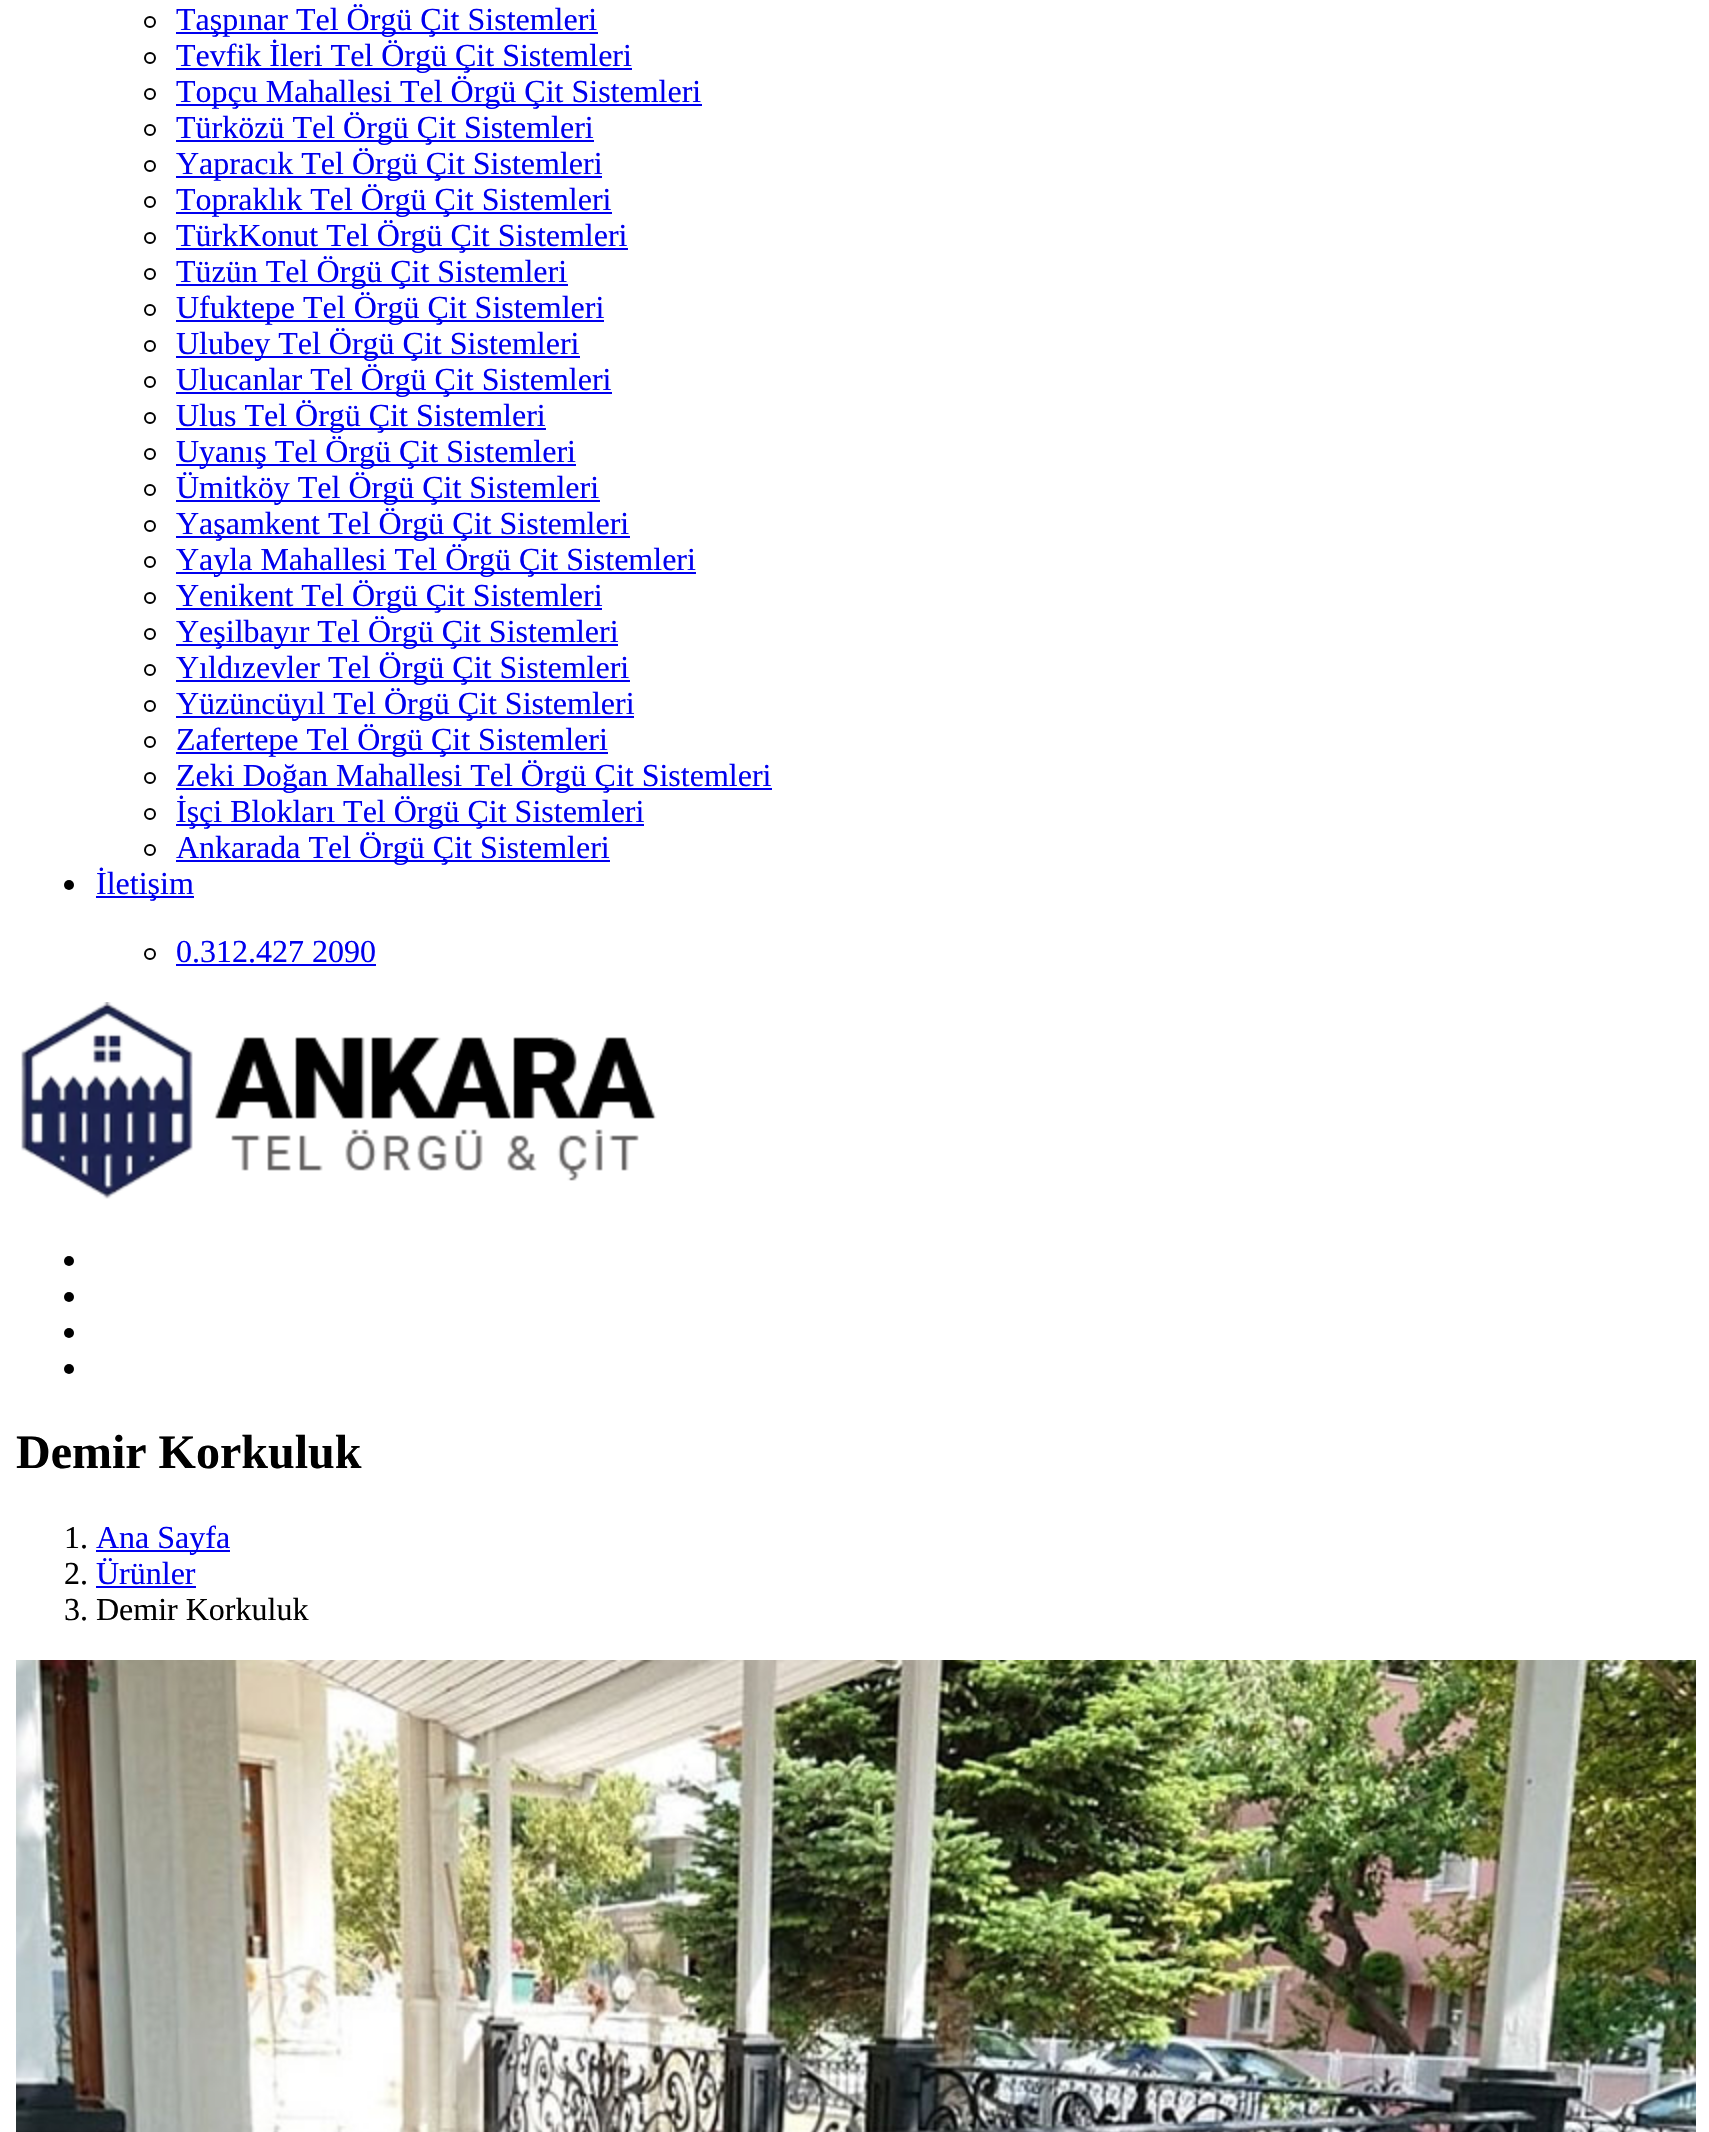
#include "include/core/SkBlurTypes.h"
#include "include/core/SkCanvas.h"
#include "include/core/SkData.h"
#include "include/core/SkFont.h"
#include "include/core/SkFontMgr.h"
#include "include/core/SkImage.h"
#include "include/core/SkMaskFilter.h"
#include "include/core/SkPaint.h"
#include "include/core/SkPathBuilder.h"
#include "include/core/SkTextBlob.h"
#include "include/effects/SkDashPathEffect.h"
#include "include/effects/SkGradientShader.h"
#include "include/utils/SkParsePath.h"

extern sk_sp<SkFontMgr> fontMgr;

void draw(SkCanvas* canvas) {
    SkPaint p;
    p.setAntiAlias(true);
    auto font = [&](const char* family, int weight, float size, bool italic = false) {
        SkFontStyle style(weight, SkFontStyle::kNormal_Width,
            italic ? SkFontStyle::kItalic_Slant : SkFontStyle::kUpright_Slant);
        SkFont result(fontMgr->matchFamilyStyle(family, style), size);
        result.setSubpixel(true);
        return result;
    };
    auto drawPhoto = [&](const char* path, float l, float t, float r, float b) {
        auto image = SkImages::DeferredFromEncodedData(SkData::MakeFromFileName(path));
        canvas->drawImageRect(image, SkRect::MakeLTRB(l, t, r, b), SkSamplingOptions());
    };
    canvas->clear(0xFFFFFFFF);
    p.setStyle(SkPaint::kStroke_Style);
    p.setStrokeWidth(2);
    p.setColor(0xFF000000);
    canvas->drawCircle(150, 22, 5, p);
    p.setStyle(SkPaint::kFill_Style);
    p.setColor(0xFF0000EE);
    canvas->drawRect(SkRect::MakeLTRB(176, 32, 598, 34), p);
    auto font1 = font("Liberation Serif", 400, 32);
    canvas->drawString("Taşpınar Tel Örgü Çit Sistemleri", 176, 30, font1, p);
    p.setStyle(SkPaint::kStroke_Style);
    p.setColor(0xFF000000);
    canvas->drawCircle(150, 58, 5, p);
    p.setStyle(SkPaint::kFill_Style);
    p.setColor(0xFF0000EE);
    canvas->drawRect(SkRect::MakeLTRB(176, 68, 632, 70), p);
    canvas->drawString("Tevfik İleri Tel Örgü Çit Sistemleri", 176, 66, font1, p);
    p.setStyle(SkPaint::kStroke_Style);
    p.setColor(0xFF000000);
    canvas->drawCircle(150, 94, 5, p);
    p.setStyle(SkPaint::kFill_Style);
    p.setColor(0xFF0000EE);
    canvas->drawRect(SkRect::MakeLTRB(176, 104, 702, 106), p);
    canvas->drawString("Topçu Mahallesi Tel Örgü Çit Sistemleri", 176, 102, font1, p);
    p.setStyle(SkPaint::kStroke_Style);
    p.setColor(0xFF000000);
    canvas->drawCircle(150, 130, 5, p);
    p.setStyle(SkPaint::kFill_Style);
    p.setColor(0xFF0000EE);
    canvas->drawRect(SkRect::MakeLTRB(176, 140, 594, 142), p);
    canvas->drawString("Türközü Tel Örgü Çit Sistemleri", 176, 138, font1, p);
    p.setStyle(SkPaint::kStroke_Style);
    p.setColor(0xFF000000);
    canvas->drawCircle(150, 166, 5, p);
    p.setStyle(SkPaint::kFill_Style);
    p.setColor(0xFF0000EE);
    canvas->drawRect(SkRect::MakeLTRB(176, 176, 602, 178), p);
    canvas->drawString("Yapracık Tel Örgü Çit Sistemleri", 176, 174, font1, p);
    p.setStyle(SkPaint::kStroke_Style);
    p.setColor(0xFF000000);
    canvas->drawCircle(150, 202, 5, p);
    p.setStyle(SkPaint::kFill_Style);
    p.setColor(0xFF0000EE);
    canvas->drawRect(SkRect::MakeLTRB(176, 212, 612, 214), p);
    canvas->drawString("Topraklık Tel Örgü Çit Sistemleri", 176, 210, font1, p);
    p.setStyle(SkPaint::kStroke_Style);
    p.setColor(0xFF000000);
    canvas->drawCircle(150, 238, 5, p);
    p.setStyle(SkPaint::kFill_Style);
    p.setColor(0xFF0000EE);
    canvas->drawRect(SkRect::MakeLTRB(176, 248, 628, 250), p);
    canvas->drawString("TürkKonut Tel Örgü Çit Sistemleri", 176, 246, font1, p);
    p.setStyle(SkPaint::kStroke_Style);
    p.setColor(0xFF000000);
    canvas->drawCircle(150, 274, 5, p);
    p.setStyle(SkPaint::kFill_Style);
    p.setColor(0xFF0000EE);
    canvas->drawRect(SkRect::MakeLTRB(176, 284, 568, 286), p);
    canvas->drawString("Tüzün Tel Örgü Çit Sistemleri", 176, 282, font1, p);
    p.setStyle(SkPaint::kStroke_Style);
    p.setColor(0xFF000000);
    canvas->drawCircle(150, 310, 5, p);
    p.setStyle(SkPaint::kFill_Style);
    p.setColor(0xFF0000EE);
    canvas->drawRect(SkRect::MakeLTRB(176, 320, 604, 322), p);
    canvas->drawString("Ufuktepe Tel Örgü Çit Sistemleri", 176, 318, font1, p);
    p.setStyle(SkPaint::kStroke_Style);
    p.setColor(0xFF000000);
    canvas->drawCircle(150, 346, 5, p);
    p.setStyle(SkPaint::kFill_Style);
    p.setColor(0xFF0000EE);
    canvas->drawRect(SkRect::MakeLTRB(176, 356, 580, 358), p);
    canvas->drawString("Ulubey Tel Örgü Çit Sistemleri", 176, 354, font1, p);
    p.setStyle(SkPaint::kStroke_Style);
    p.setColor(0xFF000000);
    canvas->drawCircle(150, 382, 5, p);
    p.setStyle(SkPaint::kFill_Style);
    p.setColor(0xFF0000EE);
    canvas->drawRect(SkRect::MakeLTRB(176, 392, 612, 394), p);
    canvas->drawString("Ulucanlar Tel Örgü Çit Sistemleri", 176, 390, font1, p);
    p.setStyle(SkPaint::kStroke_Style);
    p.setColor(0xFF000000);
    canvas->drawCircle(150, 418, 5, p);
    p.setStyle(SkPaint::kFill_Style);
    p.setColor(0xFF0000EE);
    canvas->drawRect(SkRect::MakeLTRB(176, 428, 546, 430), p);
    canvas->drawString("Ulus Tel Örgü Çit Sistemleri", 176, 426, font1, p);
    p.setStyle(SkPaint::kStroke_Style);
    p.setColor(0xFF000000);
    canvas->drawCircle(150, 454, 5, p);
    p.setStyle(SkPaint::kFill_Style);
    p.setColor(0xFF0000EE);
    canvas->drawRect(SkRect::MakeLTRB(176, 464, 576, 466), p);
    canvas->drawString("Uyanış Tel Örgü Çit Sistemleri", 176, 462, font1, p);
    p.setStyle(SkPaint::kStroke_Style);
    p.setColor(0xFF000000);
    canvas->drawCircle(150, 490, 5, p);
    p.setStyle(SkPaint::kFill_Style);
    p.setColor(0xFF0000EE);
    canvas->drawRect(SkRect::MakeLTRB(176, 500, 600, 502), p);
    canvas->drawString("Ümitköy Tel Örgü Çit Sistemleri", 176, 498, font1, p);
    p.setStyle(SkPaint::kStroke_Style);
    p.setColor(0xFF000000);
    canvas->drawCircle(150, 526, 5, p);
    p.setStyle(SkPaint::kFill_Style);
    p.setColor(0xFF0000EE);
    canvas->drawRect(SkRect::MakeLTRB(176, 536, 630, 538), p);
    canvas->drawString("Yaşamkent Tel Örgü Çit Sistemleri", 176, 534, font1, p);
    p.setStyle(SkPaint::kStroke_Style);
    p.setColor(0xFF000000);
    canvas->drawCircle(150, 562, 5, p);
    p.setStyle(SkPaint::kFill_Style);
    p.setColor(0xFF0000EE);
    canvas->drawRect(SkRect::MakeLTRB(176, 572, 696, 574), p);
    canvas->drawString("Yayla Mahallesi Tel Örgü Çit Sistemleri", 176, 570, font1, p);
    p.setStyle(SkPaint::kStroke_Style);
    p.setColor(0xFF000000);
    canvas->drawCircle(150, 598, 5, p);
    p.setStyle(SkPaint::kFill_Style);
    p.setColor(0xFF0000EE);
    canvas->drawRect(SkRect::MakeLTRB(176, 608, 602, 610), p);
    canvas->drawString("Yenikent Tel Örgü Çit Sistemleri", 176, 606, font1, p);
    p.setStyle(SkPaint::kStroke_Style);
    p.setColor(0xFF000000);
    canvas->drawCircle(150, 634, 5, p);
    p.setStyle(SkPaint::kFill_Style);
    p.setColor(0xFF0000EE);
    canvas->drawRect(SkRect::MakeLTRB(176, 644, 618, 646), p);
    canvas->drawString("Yeşilbayır Tel Örgü Çit Sistemleri", 176, 642, font1, p);
    p.setStyle(SkPaint::kStroke_Style);
    p.setColor(0xFF000000);
    canvas->drawCircle(150, 670, 5, p);
    p.setStyle(SkPaint::kFill_Style);
    p.setColor(0xFF0000EE);
    canvas->drawRect(SkRect::MakeLTRB(176, 680, 630, 682), p);
    canvas->drawString("Yıldızevler Tel Örgü Çit Sistemleri", 176, 678, font1, p);
    p.setStyle(SkPaint::kStroke_Style);
    p.setColor(0xFF000000);
    canvas->drawCircle(150, 706, 5, p);
    p.setStyle(SkPaint::kFill_Style);
    p.setColor(0xFF0000EE);
    canvas->drawRect(SkRect::MakeLTRB(176, 716, 634, 718), p);
    canvas->drawString("Yüzüncüyıl Tel Örgü Çit Sistemleri", 176, 714, font1, p);
    p.setStyle(SkPaint::kStroke_Style);
    p.setColor(0xFF000000);
    canvas->drawCircle(150, 742, 5, p);
    p.setStyle(SkPaint::kFill_Style);
    p.setColor(0xFF0000EE);
    canvas->drawRect(SkRect::MakeLTRB(176, 752, 608, 754), p);
    canvas->drawString("Zafertepe Tel Örgü Çit Sistemleri", 176, 750, font1, p);
    p.setStyle(SkPaint::kStroke_Style);
    p.setColor(0xFF000000);
    canvas->drawCircle(150, 778, 5, p);
    p.setStyle(SkPaint::kFill_Style);
    p.setColor(0xFF0000EE);
    canvas->drawRect(SkRect::MakeLTRB(176, 788, 772, 790), p);
    canvas->drawString("Zeki Doğan Mahallesi Tel Örgü Çit Sistemleri", 176, 786, font1, p);
    p.setStyle(SkPaint::kStroke_Style);
    p.setColor(0xFF000000);
    canvas->drawCircle(150, 814, 5, p);
    p.setStyle(SkPaint::kFill_Style);
    p.setColor(0xFF0000EE);
    canvas->drawRect(SkRect::MakeLTRB(176, 824, 644, 826), p);
    canvas->drawString("İşçi Blokları Tel Örgü Çit Sistemleri", 176, 822, font1, p);
    p.setStyle(SkPaint::kStroke_Style);
    p.setColor(0xFF000000);
    canvas->drawCircle(150, 850, 5, p);
    p.setStyle(SkPaint::kFill_Style);
    p.setColor(0xFF0000EE);
    canvas->drawRect(SkRect::MakeLTRB(176, 860, 610, 862), p);
    canvas->drawString("Ankarada Tel Örgü Çit Sistemleri", 176, 858, font1, p);
    p.setColor(0xFF000000);
    canvas->drawCircle(69, 885, 5, p);
    p.setColor(0xFF0000EE);
    canvas->drawRect(SkRect::MakeLTRB(96, 896, 194, 898), p);
    canvas->drawString("İletişim", 96, 894, font1, p);
    p.setStyle(SkPaint::kStroke_Style);
    p.setColor(0xFF000000);
    canvas->drawCircle(150, 954, 5, p);
    p.setStyle(SkPaint::kFill_Style);
    p.setColor(0xFF0000EE);
    canvas->drawString("0.312.427 2090", 176, 962, font1, p);
    canvas->drawRect(SkRect::MakeLTRB(176, 964, 376, 966), p);
    drawPhoto("media/1.png", 21, 1002, 657, 1199);
    p.setColor(0xFF000000);
    canvas->drawCircle(69, 1261, 5, p);
    canvas->drawCircle(69, 1297, 5, p);
    canvas->drawCircle(69, 1333, 5, p);
    canvas->drawCircle(69, 1369, 5, p);
    auto font2 = font("Liberation Serif", 700, 48);
    canvas->drawString("Demir Korkuluk", 16, 1468, font2, p);
    canvas->drawString("1.", 64, 1548, font1, p);
    p.setColor(0xFF0000EE);
    canvas->drawRect(SkRect::MakeLTRB(96, 1550, 230, 1552), p);
    canvas->drawString("Ana Sayfa", 96, 1548, font1, p);
    p.setColor(0xFF000000);
    canvas->drawString("2.", 64, 1584, font1, p);
    p.setColor(0xFF0000EE);
    canvas->drawString("Ürünler", 96, 1584, font1, p);
    canvas->drawRect(SkRect::MakeLTRB(96, 1586, 196, 1588), p);
    p.setColor(0xFF000000);
    canvas->drawString("3. Demir Korkuluk", 64, 1620, font1, p);
    drawPhoto("media/2.png", 16, 1660, 1696, 2132);
}
